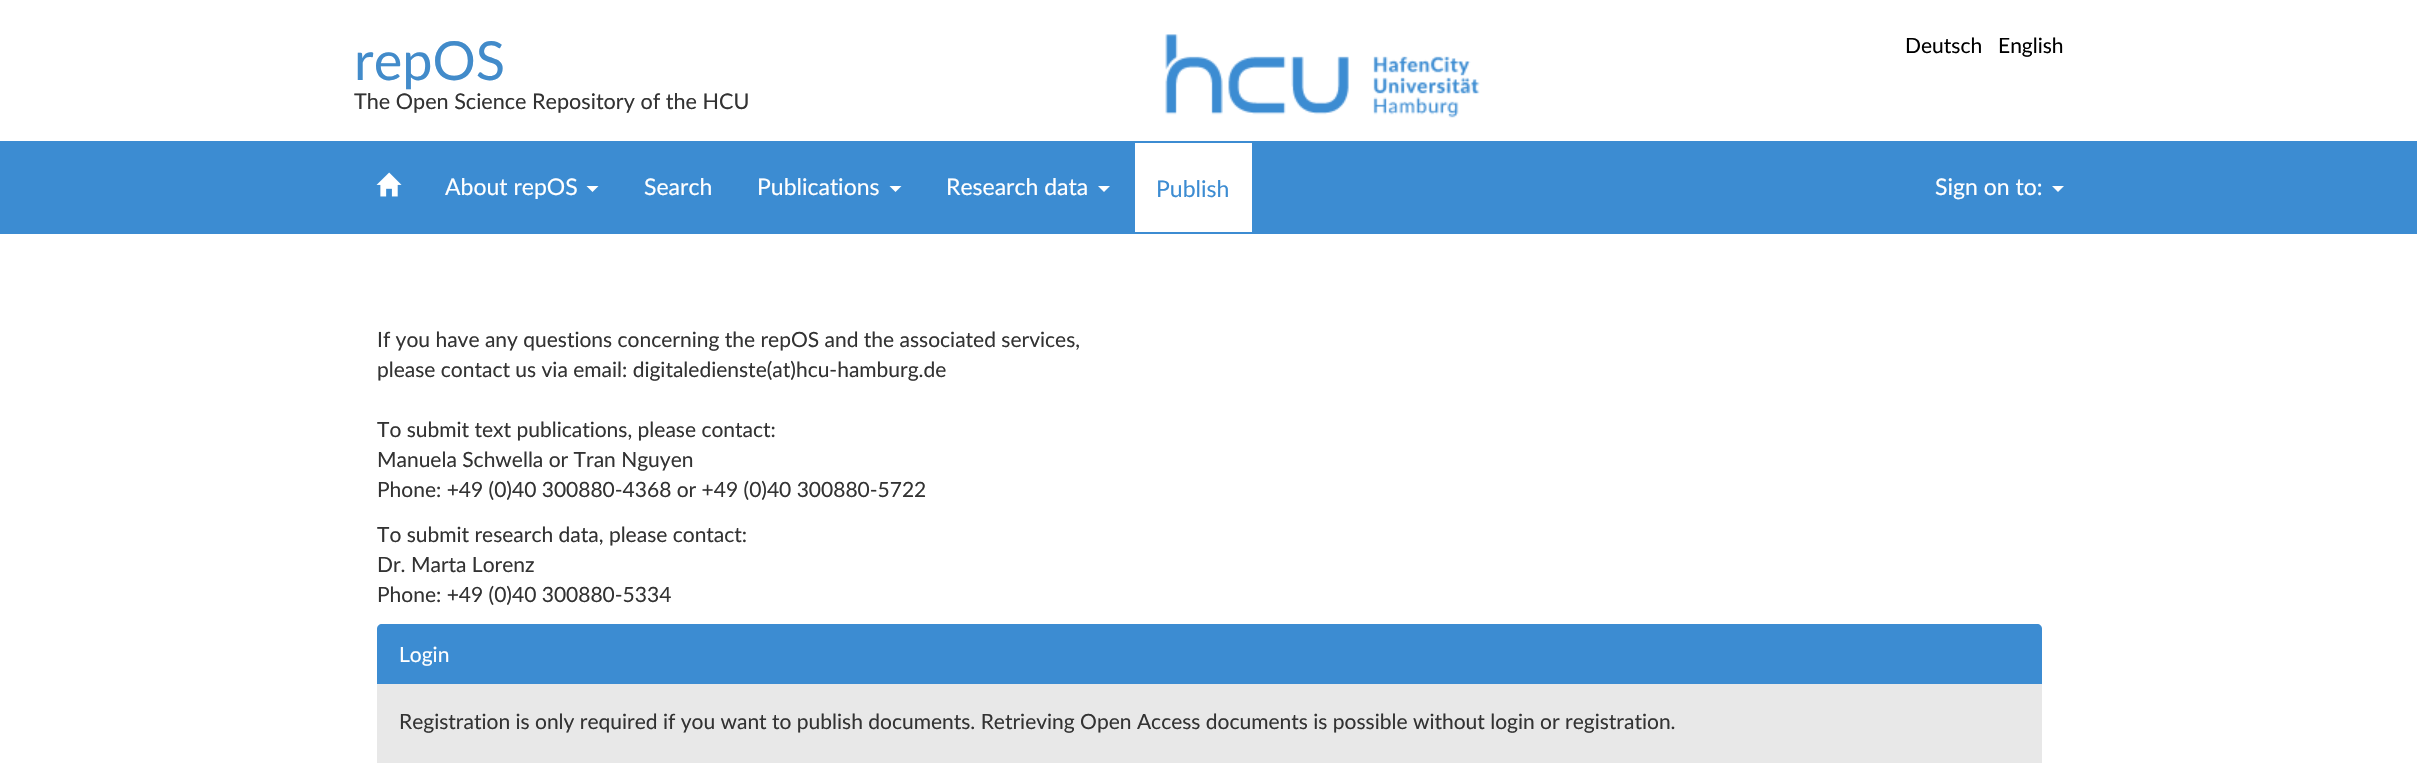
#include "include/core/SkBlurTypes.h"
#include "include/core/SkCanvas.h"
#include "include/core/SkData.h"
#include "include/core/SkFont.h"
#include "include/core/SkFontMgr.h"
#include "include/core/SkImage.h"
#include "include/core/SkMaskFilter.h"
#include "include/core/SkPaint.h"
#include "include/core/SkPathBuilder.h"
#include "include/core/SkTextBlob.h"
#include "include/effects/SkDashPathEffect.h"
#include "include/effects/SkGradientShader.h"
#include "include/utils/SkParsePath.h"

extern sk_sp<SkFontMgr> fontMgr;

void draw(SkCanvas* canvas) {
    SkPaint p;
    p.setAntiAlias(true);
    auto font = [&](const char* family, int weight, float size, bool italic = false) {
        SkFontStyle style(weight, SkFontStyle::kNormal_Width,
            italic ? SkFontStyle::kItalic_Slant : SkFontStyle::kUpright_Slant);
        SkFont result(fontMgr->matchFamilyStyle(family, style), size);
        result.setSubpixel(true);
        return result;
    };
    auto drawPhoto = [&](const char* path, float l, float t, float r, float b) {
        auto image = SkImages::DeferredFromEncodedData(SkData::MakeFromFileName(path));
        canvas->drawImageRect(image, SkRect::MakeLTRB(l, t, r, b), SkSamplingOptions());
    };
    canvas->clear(0xFFFFFFFF);
    auto font1 = font("Lato", 400, 54);
    p.setColor(0xFF428BCA);
    canvas->drawString("repOS", 354, 80, font1, p);
    auto font2 = font("Lato", 400, 21.6f);
    p.setColor(0xFF333333);
    canvas->drawString("The Open Science Repository of the HCU", 354, 109, font2, p);
    drawPhoto("media/1.png", 1165, 34, 1480, 118);
    auto font3 = font("Lato", 400, 21);
    p.setColor(0xFF000000);
    canvas->drawString("Deutsch", 1905, 53, font3, p);
    canvas->drawString("English", 1998, 53, font3, p);
    p.setColor(0xFF3C8CD2);
    canvas->drawRect(SkRect::MakeLTRB(0, 141, 2417, 234), p);
    drawPhoto("media/2.png", 376, 172, 402, 197);
    auto font4 = font("Lato", 400, 23);
    p.setColor(0xFFFFFFFF);
    canvas->drawString("About repOS", 445, 195, font4, p);
    canvas->drawPath(SkPathBuilder().moveTo(586.5f, 186).lineTo(598.5f, 186).lineTo(592.5f, 192).close().detach(), p);
    canvas->drawString("Search", 644, 195, font4, p);
    canvas->drawString("Publications", 757, 195, font4, p);
    canvas->drawPath(SkPathBuilder().moveTo(889.5f, 186).lineTo(901.5f, 186).lineTo(895.5f, 192).close().detach(), p);
    canvas->drawString("Research data", 946, 195, font4, p);
    canvas->drawPath(SkPathBuilder().moveTo(1098, 186).lineTo(1110, 186).lineTo(1104, 192).close().detach(), p);
    canvas->drawRect(SkRect::MakeLTRB(1135, 143, 1252, 232), p);
    p.setColor(0xFF3C8CD2);
    canvas->drawString("Publish", 1156, 197, font4, p);
    p.setColor(0xFFFFFFFF);
    canvas->drawString("Sign on to:", 1935, 195, font4, p);
    canvas->drawPath(SkPathBuilder().moveTo(2052, 186).lineTo(2064, 186).lineTo(2058, 192).close().detach(), p);
    p.setColor(0xFF333333);
    {
        const struct { const char* s; float x, y; } items[] = {
            {"If you have any questions concerning the repOS and the associated services,", 377, 347},
            {"please contact us via email: digitaledienste(at)hcu-hamburg.de", 377, 377},
            {"To submit text publications, please contact:", 377, 437},
            {"Manuela Schwella or Tran Nguyen", 377, 467},
            {"Phone: +49 (0)40 300880-4368 or +49 (0)40 300880-5722", 377, 497},
            {"To submit research data, please contact:", 377, 542},
            {"Dr. Marta Lorenz", 377, 572},
            {"Phone: +49 (0)40 300880-5334", 377, 602},
        };
        for (auto [s, x, y] : items) {
            canvas->drawString(s, x, y, font3, p);
        }
    }
    p.setColor(0xFFE8E8E8);
    canvas->drawRoundRect(SkRect::MakeLTRB(377, 624, 2042, 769), 6, 6, p);
    p.setColor(0xFF3C8CD2);
    canvas->drawPath(SkPathBuilder().moveTo(382, 624).lineTo(2037, 624).cubicTo(2040, 624, 2042, 626, 2042, 629).lineTo(2042, 684).lineTo(377, 684).lineTo(377, 629).cubicTo(377, 626, 379, 624, 382, 624).close().detach(), p);
    p.setColor(0xFFFFFFFF);
    canvas->drawString("Login", 399, 662, font3, p);
    p.setColor(0xFF333333);
    canvas->drawString("Registration is only required if you want to publish documents. Retrieving Open Access documents is possible without login or registration.", 399, 729, font3, p);
}
